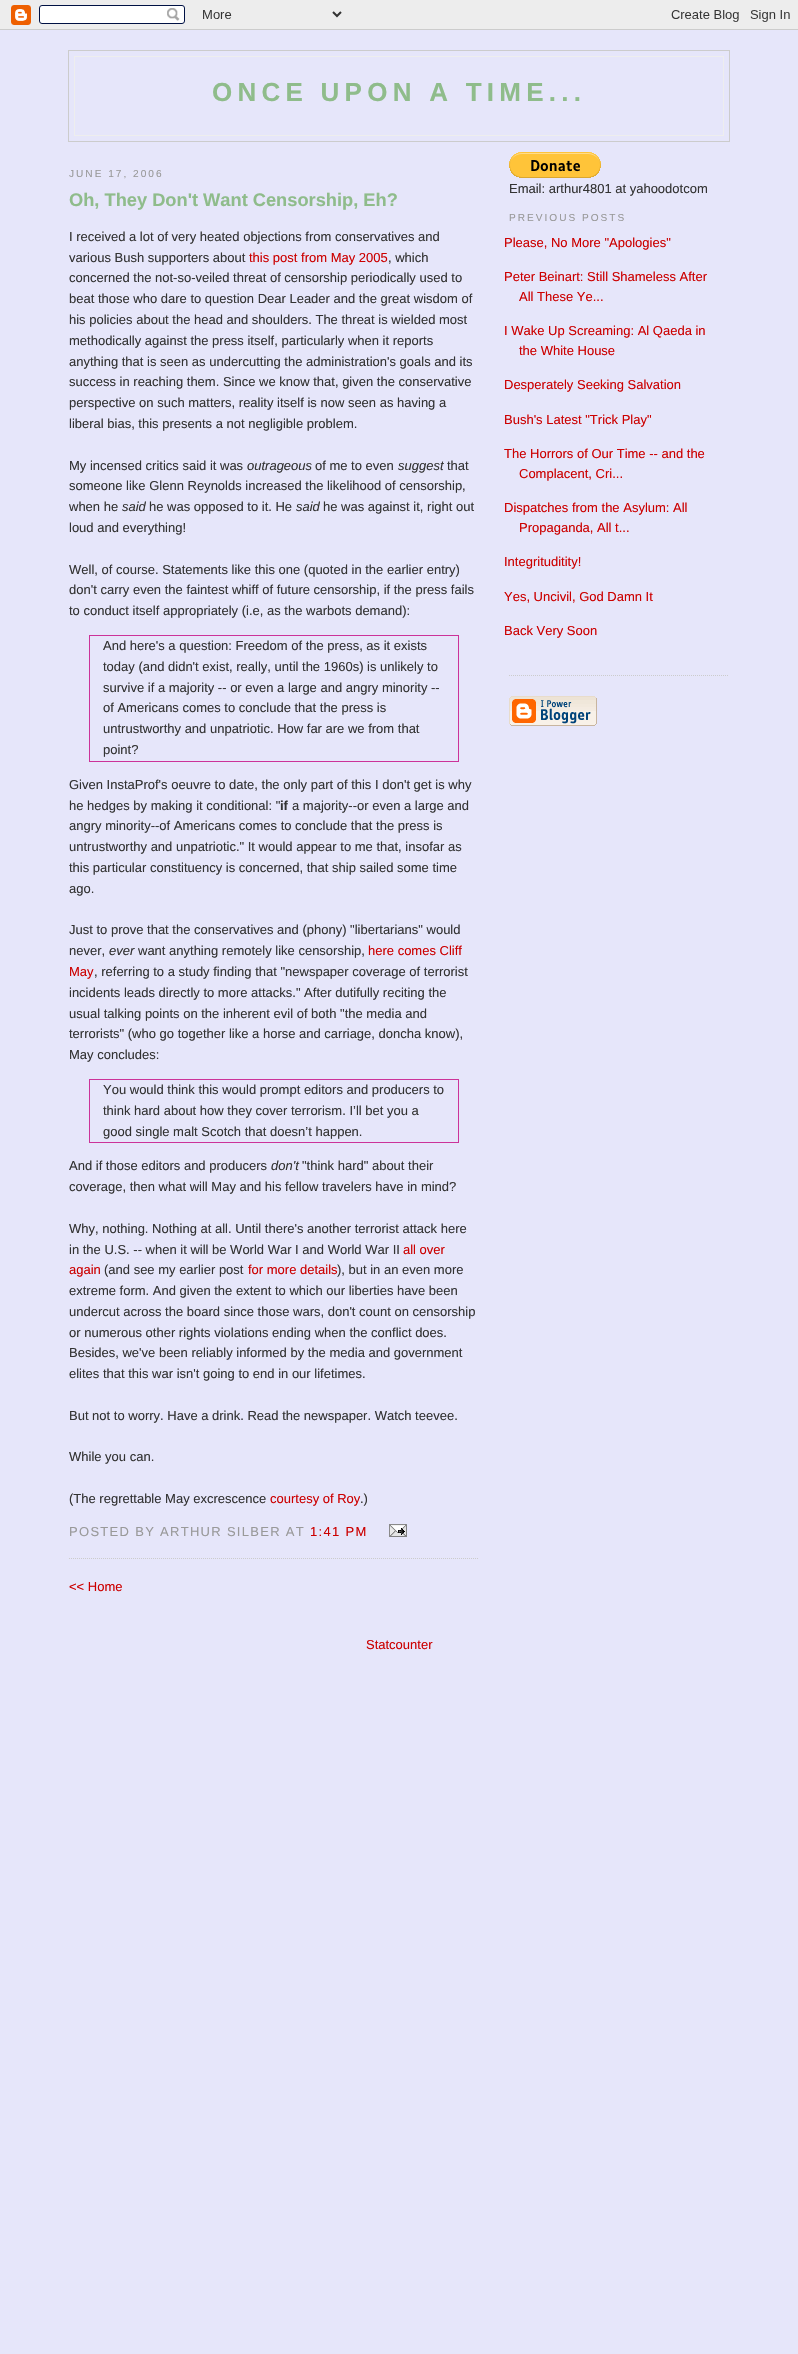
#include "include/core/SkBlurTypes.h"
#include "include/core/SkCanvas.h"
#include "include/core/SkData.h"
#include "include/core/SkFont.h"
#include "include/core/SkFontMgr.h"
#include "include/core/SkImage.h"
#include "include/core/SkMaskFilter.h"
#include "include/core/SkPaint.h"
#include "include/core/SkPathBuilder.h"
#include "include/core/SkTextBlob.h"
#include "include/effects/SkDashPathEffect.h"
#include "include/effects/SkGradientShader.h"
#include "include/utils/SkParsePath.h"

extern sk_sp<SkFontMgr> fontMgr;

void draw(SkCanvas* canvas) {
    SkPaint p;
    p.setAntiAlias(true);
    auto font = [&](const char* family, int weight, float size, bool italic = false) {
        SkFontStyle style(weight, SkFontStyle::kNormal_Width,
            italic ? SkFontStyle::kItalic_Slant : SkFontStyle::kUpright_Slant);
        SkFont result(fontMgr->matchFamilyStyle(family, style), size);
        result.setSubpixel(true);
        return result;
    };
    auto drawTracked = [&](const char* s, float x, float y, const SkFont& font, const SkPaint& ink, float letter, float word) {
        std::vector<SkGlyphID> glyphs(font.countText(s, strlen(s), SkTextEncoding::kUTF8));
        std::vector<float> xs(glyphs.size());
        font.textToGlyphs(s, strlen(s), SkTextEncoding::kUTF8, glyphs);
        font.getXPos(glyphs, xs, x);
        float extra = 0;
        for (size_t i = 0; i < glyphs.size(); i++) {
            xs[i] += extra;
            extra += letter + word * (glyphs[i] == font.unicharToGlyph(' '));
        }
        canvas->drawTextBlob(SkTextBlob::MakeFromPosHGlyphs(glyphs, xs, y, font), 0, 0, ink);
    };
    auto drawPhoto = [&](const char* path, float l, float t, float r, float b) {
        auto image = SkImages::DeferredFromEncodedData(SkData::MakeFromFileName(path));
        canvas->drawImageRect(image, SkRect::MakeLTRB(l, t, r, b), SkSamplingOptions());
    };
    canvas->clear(0xFFE6E6FA);
    drawPhoto("media/1.png", 0, 0, 798, 30);
    p.setStyle(SkPaint::kStroke_Style);
    p.setStrokeWidth(1);
    p.setColor(0xFFCCCCCC);
    canvas->drawRect(SkRect::MakeLTRB(68.5f, 50.5f, 729.5f, 141.5f), p);
    p.setStyle(SkPaint::kFill_Style);
    {
        const struct { float l, t, r, b; SkColor color; } items[] = {
            {74, 56, 724, 57, 0xFFEEEEEE},
            {723, 56, 724, 136, 0xFFEEEEEE},
            {74, 56, 75, 115, 0xFFEEEEEE},
        };
        for (auto [l, t, r, b, color] : items) {
            p.setColor(color);
            canvas->drawRect(SkRect::MakeLTRB(l, t, r, b), p);
        }
    }
    auto font1 = font("Liberation Sans", 700, 26);
    p.setColor(0xFF8FBC8B);
    drawTracked("ONCE UPON A TIME...", 212, 101, font1, p, 5.25f, 0);
    p.setColor(0xFFEEEEEE);
    canvas->drawRect(SkRect::MakeLTRB(74, 135, 724, 136), p);
    canvas->drawRect(SkRect::MakeLTRB(74, 115, 75, 136), p);
    auto font2 = font("Liberation Sans", 400, 10.1f);
    p.setColor(0xFF999999);
    drawTracked("JUNE 17, 2006", 69, 177, font2, p, 2, 0);
    p.setStyle(SkPaint::kStroke_Style);
    p.setColor(0xFFCCCCCC);
    p.setPathEffect(SkDashPathEffect::Make({{1, 1}}, 0));
    canvas->drawPath(SkPathBuilder().moveTo(69, 1558.5f).lineTo(479, 1558.5f).detach(), p);
    p.setPathEffect(nullptr);
    auto font3 = font("Liberation Sans", 700, 18.25f);
    p.setStyle(SkPaint::kFill_Style);
    p.setColor(0xFF8FBC8B);
    canvas->drawString("Oh, They Don't Want Censorship, Eh?", 69, 206, font3, p);
    auto font4 = font("Liberation Sans", 400, 13);
    p.setColor(0xFF333333);
    canvas->drawString("I received a lot of very heated objections from conservatives and", 69, 241, font4, p);
    canvas->drawString("various Bush supporters about", 69, 262, font4, p);
    p.setColor(0xFFCC0000);
    canvas->drawString("this post from May 2005", 249, 262, font4, p);
    p.setColor(0xFF333333);
    {
        const struct { const char* s; float x, y; } items[] = {
            {", which", 388, 262},
            {"concerned the not-so-veiled threat of censorship periodically used to", 69, 282},
            {"beat those who dare to question Dear Leader and the great wisdom of", 69, 303},
            {"his policies about the head and shoulders. The threat is wielded most", 69, 324},
            {"methodically against the press itself, particularly when it reports", 69, 345},
            {"anything that is seen as undercutting the administration's goals and its", 69, 366},
            {"success in reaching them. Since we know that, given the conservative", 69, 386},
            {"perspective on such matters, reality itself is now seen as having a", 69, 407},
            {"liberal bias, this presents a not negligible problem.", 69, 428},
            {"My incensed critics said it was", 69, 470},
        };
        for (auto [s, x, y] : items) {
            canvas->drawString(s, x, y, font4, p);
        }
    }
    auto font5 = font("Liberation Sans", 400, 13, true);
    canvas->drawString("outrageous", 247, 470, font5, p);
    canvas->drawString("of me to even", 315, 470, font4, p);
    canvas->drawString("suggest", 398, 470, font5, p);
    {
        const struct { const char* s; float x, y; } items[] = {
            {"that", 447, 470},
            {"someone like Glenn Reynolds increased the likelihood of censorship,", 69, 490},
            {"when he", 69, 511},
        };
        for (auto [s, x, y] : items) {
            canvas->drawString(s, x, y, font4, p);
        }
    }
    canvas->drawString("said", 122, 511, font5, p);
    canvas->drawString("he was opposed to it. He", 149, 511, font4, p);
    canvas->drawString("said", 296, 511, font5, p);
    {
        const struct { const char* s; float x, y; } items[] = {
            {"he was against it, right out", 323, 511},
            {"loud and everything!", 69, 532},
            {"Well, of course. Statements like this one (quoted in the earlier entry)", 69, 574},
            {"don't carry even the faintest whiff of future censorship, if the press fails", 69, 594},
            {"to conduct itself appropriately (i.e, as the warbots demand):", 69, 615},
        };
        for (auto [s, x, y] : items) {
            canvas->drawString(s, x, y, font4, p);
        }
    }
    p.setStyle(SkPaint::kStroke_Style);
    p.setColor(0xFFCC3399);
    canvas->drawRect(SkRect::MakeLTRB(89.5f, 635.5f, 458.5f, 761.5f), p);
    p.setStyle(SkPaint::kFill_Style);
    p.setColor(0xFF333333);
    {
        const struct { const char* s; float x, y; } items[] = {
            {"And here's a question: Freedom of the press, as it exists", 103, 650},
            {"today (and didn't exist, really, until the 1960s) is unlikely to", 103, 671},
            {"survive if a majority -- or even a large and angry minority --", 103, 692},
            {"of Americans comes to conclude that the press is", 103, 712},
            {"untrustworthy and unpatriotic. How far are we from that", 103, 733},
            {"point?", 103, 754},
            {"Given InstaProf's oeuvre to date, the only part of this I don't get is why", 69, 789},
            {"he hedges by making it conditional: \"", 69, 810},
        };
        for (auto [s, x, y] : items) {
            canvas->drawString(s, x, y, font4, p);
        }
    }
    auto font6 = font("Liberation Sans", 700, 13);
    canvas->drawString("if", 280, 810, font6, p);
    {
        const struct { const char* s; float x, y; } items[] = {
            {"a majority--or even a large and", 292, 810},
            {"angry minority--of Americans comes to conclude that the press is", 69, 830},
            {"untrustworthy and unpatriotic.\" It would appear to me that, insofar as", 69, 851},
            {"this particular constituency is concerned, that ship sailed some time", 69, 872},
            {"ago.", 69, 893},
            {"Just to prove that the conservatives and (phony) \"libertarians\" would", 69, 934},
            {"never,", 69, 955},
        };
        for (auto [s, x, y] : items) {
            canvas->drawString(s, x, y, font4, p);
        }
    }
    canvas->drawString("ever", 109, 955, font5, p);
    canvas->drawString("want anything remotely like censorship,", 138, 955, font4, p);
    p.setColor(0xFFCC0000);
    canvas->drawString("here comes Cliff", 368, 955, font4, p);
    canvas->drawString("May", 69, 976, font4, p);
    p.setColor(0xFF333333);
    {
        const struct { const char* s; float x, y; } items[] = {
            {", referring to a study finding that \"newspaper coverage of terrorist", 94, 976},
            {"incidents leads directly to more attacks.\" After dutifully reciting the", 69, 997},
            {"usual talking points on the inherent evil of both \"the media and", 69, 1018},
            {"terrorists\" (who go together like a horse and carriage, doncha know),", 69, 1038},
            {"May concludes:", 69, 1059},
        };
        for (auto [s, x, y] : items) {
            canvas->drawString(s, x, y, font4, p);
        }
    }
    p.setStyle(SkPaint::kStroke_Style);
    p.setColor(0xFFCC3399);
    canvas->drawRect(SkRect::MakeLTRB(89.5f, 1079.5f, 458.5f, 1142.5f), p);
    p.setStyle(SkPaint::kFill_Style);
    p.setColor(0xFF333333);
    {
        const struct { const char* s; float x, y; } items[] = {
            {"You would think this would prompt editors and producers to", 103, 1094},
            {"think hard about how they cover terrorism. I’ll bet you a", 103, 1115},
            {"good single malt Scotch that doesn’t happen.", 103, 1136},
            {"And if those editors and producers", 69, 1170},
        };
        for (auto [s, x, y] : items) {
            canvas->drawString(s, x, y, font4, p);
        }
    }
    canvas->drawString("don't", 271, 1170, font5, p);
    {
        const struct { const char* s; float x, y; } items[] = {
            {"\"think hard\" about their", 302, 1170},
            {"coverage, then what will May and his fellow travelers have in mind?", 69, 1191},
            {"Why, nothing. Nothing at all. Until there's another terrorist attack here", 69, 1233},
            {"in the U.S. -- when it will be World War I and World War II", 69, 1254},
        };
        for (auto [s, x, y] : items) {
            canvas->drawString(s, x, y, font4, p);
        }
    }
    p.setColor(0xFFCC0000);
    canvas->drawString("all over", 403, 1254, font4, p);
    canvas->drawString("again", 69, 1274, font4, p);
    p.setColor(0xFF333333);
    canvas->drawString("(and see my earlier post", 104, 1274, font4, p);
    p.setColor(0xFFCC0000);
    canvas->drawString("for more details", 248, 1274, font4, p);
    p.setColor(0xFF333333);
    {
        const struct { const char* s; float x, y; } items[] = {
            {"), but in an even more", 337, 1274},
            {"extreme form. And given the extent to which our liberties have been", 69, 1295},
            {"undercut across the board since those wars, don't count on censorship", 69, 1316},
            {"or numerous other rights violations ending when the conflict does.", 69, 1337},
            {"Besides, we've been reliably informed by the media and government", 69, 1357},
            {"elites that this war isn't going to end in our lifetimes.", 69, 1378},
            {"But not to worry. Have a drink. Read the newspaper. Watch teevee.", 69, 1420},
            {"While you can.", 69, 1461},
            {"(The regrettable May excrescence", 69, 1503},
        };
        for (auto [s, x, y] : items) {
            canvas->drawString(s, x, y, font4, p);
        }
    }
    p.setColor(0xFFCC0000);
    canvas->drawString("courtesy of Roy", 270, 1503, font4, p);
    p.setColor(0xFF333333);
    canvas->drawString(".)", 360, 1503, font4, p);
    p.setColor(0xFF999999);
    drawTracked("POSTED BY ARTHUR SILBER AT", 69, 1536, font4, p, 1.3f, 0);
    p.setColor(0xFFCC0000);
    drawTracked("1:41 PM", 310, 1536, font4, p, 1.3f, 0);
    drawPhoto("media/2.png", 389, 1524, 407, 1537);
    canvas->drawString("<< Home", 69, 1591, font4, p);
    drawPhoto("media/3.png", 509, 152, 601, 178);
    p.setColor(0xFF333333);
    canvas->drawString("Email: arthur4801 at yahoodotcom", 509, 193, font4, p);
    p.setColor(0xFF999999);
    drawTracked("PREVIOUS POSTS", 509, 221, font2, p, 2, 0);
    p.setStyle(SkPaint::kStroke_Style);
    p.setColor(0xFFCCCCCC);
    p.setPathEffect(SkDashPathEffect::Make({{1, 1}}, 0));
    canvas->drawPath(SkPathBuilder().moveTo(509, 675.5f).lineTo(729, 675.5f).detach(), p);
    p.setPathEffect(nullptr);
    p.setStyle(SkPaint::kFill_Style);
    p.setColor(0xFFCC0000);
    {
        const struct { const char* s; float x, y; } items[] = {
            {"Please, No More \"Apologies\"", 504, 247},
            {"Peter Beinart: Still Shameless After", 504, 281},
            {"All These Ye...", 519, 301},
            {"I Wake Up Screaming: Al Qaeda in", 504, 335},
            {"the White House", 519, 355},
            {"Desperately Seeking Salvation", 504, 389},
            {"Bush's Latest \"Trick Play\"", 504, 424},
            {"The Horrors of Our Time -- and the", 504, 458},
            {"Complacent, Cri...", 519, 478},
            {"Dispatches from the Asylum: All", 504, 512},
            {"Propaganda, All t...", 519, 532},
            {"Integrituditity!", 504, 566},
            {"Yes, Uncivil, God Damn It", 504, 601},
            {"Back Very Soon", 504, 635},
        };
        for (auto [s, x, y] : items) {
            canvas->drawString(s, x, y, font4, p);
        }
    }
    drawPhoto("media/4.png", 509, 696, 597, 726);
    canvas->drawString("Statcounter", 366, 1649, font4, p);
}
